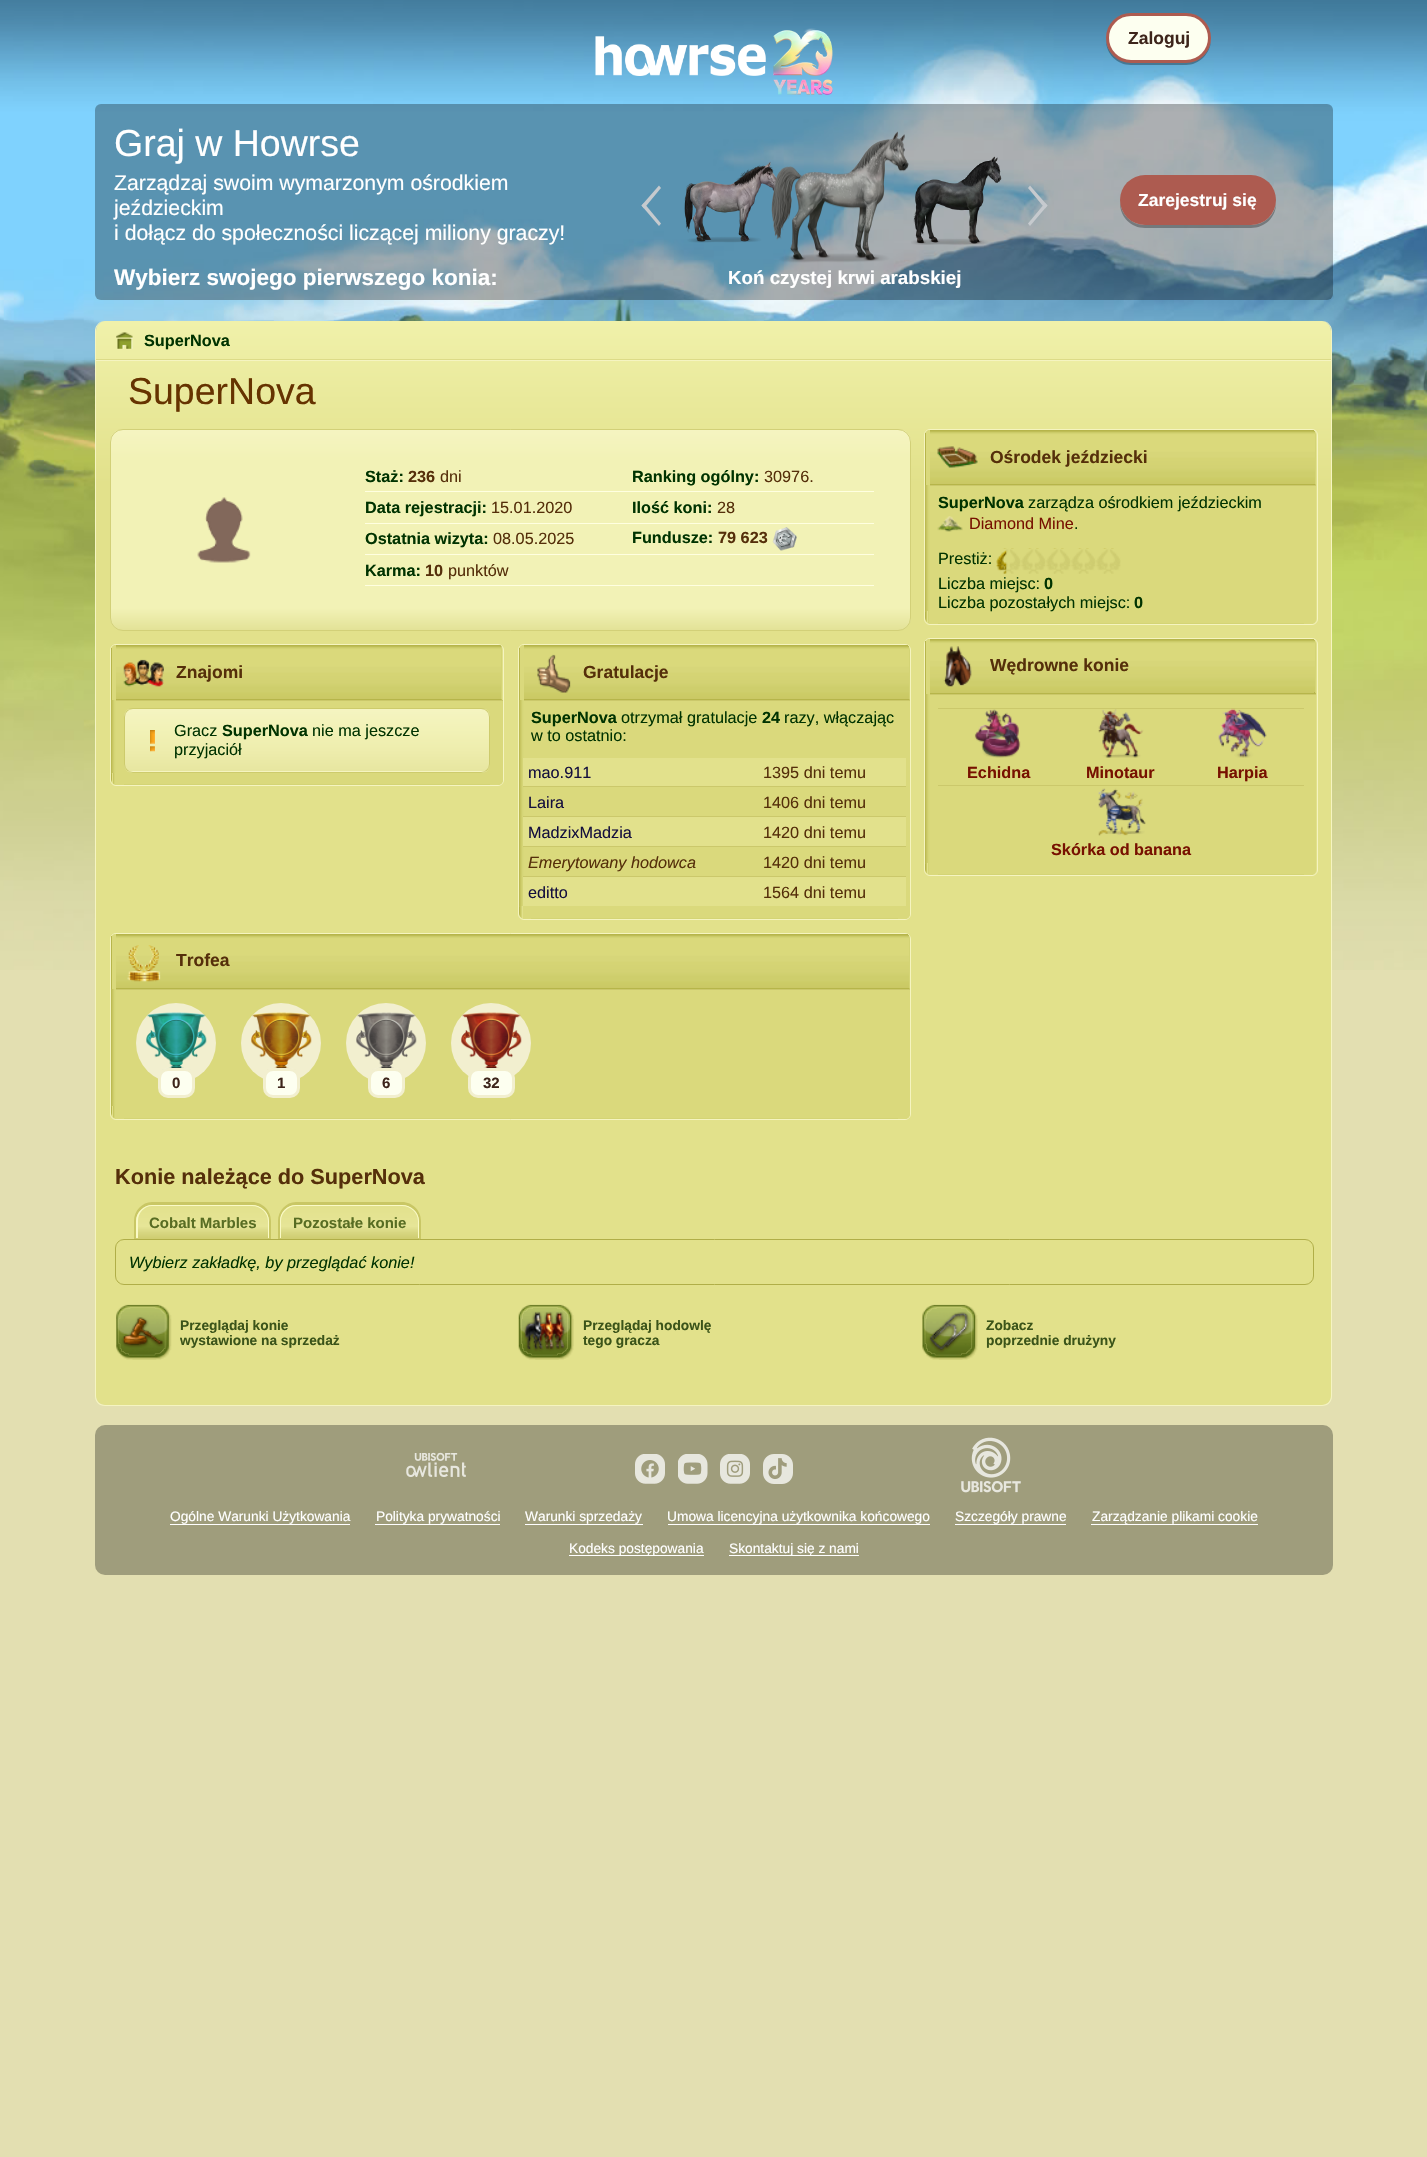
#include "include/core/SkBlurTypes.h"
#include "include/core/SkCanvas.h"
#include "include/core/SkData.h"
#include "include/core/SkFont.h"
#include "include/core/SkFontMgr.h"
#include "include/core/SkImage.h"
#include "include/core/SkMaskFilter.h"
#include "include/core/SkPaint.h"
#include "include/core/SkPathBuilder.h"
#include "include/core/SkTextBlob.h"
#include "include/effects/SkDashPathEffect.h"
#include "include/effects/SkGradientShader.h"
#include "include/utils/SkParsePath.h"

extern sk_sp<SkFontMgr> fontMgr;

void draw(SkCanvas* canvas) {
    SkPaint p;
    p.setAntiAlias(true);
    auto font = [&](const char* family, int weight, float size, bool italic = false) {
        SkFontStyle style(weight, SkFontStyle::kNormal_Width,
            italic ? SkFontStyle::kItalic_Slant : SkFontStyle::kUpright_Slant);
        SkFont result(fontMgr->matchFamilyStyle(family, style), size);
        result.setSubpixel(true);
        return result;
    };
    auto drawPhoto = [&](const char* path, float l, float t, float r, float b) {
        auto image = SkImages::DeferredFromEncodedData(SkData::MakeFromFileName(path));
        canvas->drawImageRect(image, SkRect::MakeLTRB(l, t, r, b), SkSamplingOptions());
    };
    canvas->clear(0xFFE3DFB1);
    drawPhoto("media/1.png", 0, 0, 1427, 970);
    drawPhoto("media/2.png", 595, 28, 833, 95);
    p.setColor(0x4D000000);
    canvas->drawPath(SkPathBuilder().moveTo(1106, 36).lineTo(1106, 40).cubicTo(1106, 54, 1117, 65, 1131, 65).lineTo(1186, 65).cubicTo(1199, 65, 1210, 54, 1211, 41).cubicTo(1209, 53, 1199, 62, 1186, 62).lineTo(1131, 62).cubicTo(1117, 62, 1106, 51, 1106, 38).close().detach(), p);
    p.setColor(0xFFFDFFF0);
    canvas->drawRoundRect(SkRect::MakeLTRB(1107.5f, 14.5f, 1209.5f, 61.5f), 23.5f, 23.5f, p);
    p.setStyle(SkPaint::kStroke_Style);
    p.setStrokeWidth(3);
    p.setColor(0xFFAD5B50);
    canvas->drawRoundRect(SkRect::MakeLTRB(1107.5f, 14.5f, 1209.5f, 61.5f), 23.5f, 23.5f, p);
    auto font1 = font("Liberation Sans", 700, 17.5f);
    p.setStyle(SkPaint::kFill_Style);
    p.setColor(0xFF3D251B);
    canvas->drawString("Zaloguj", 1128, 44, font1, p);
    p.setColor(0x4D000000);
    canvas->drawRoundRect(SkRect::MakeLTRB(95, 104, 1333, 300), 6, 6, p);
    auto font2 = font("Liberation Sans", 400, 37.5f);
    p.setColor(0xFFFFFFFF);
    canvas->drawString("Graj w Howrse", 114, 156, font2, p);
    auto font3 = font("Liberation Sans", 400, 21.25f);
    {
        const struct { const char* s; float x, y; } items[] = {
            {"Zarządzaj swoim wymarzonym ośrodkiem", 114, 190},
            {"jeździeckim", 114, 215},
            {"i dołącz do społeczności liczącej miliony graczy!", 114, 240},
        };
        for (auto [s, x, y] : items) {
            canvas->drawString(s, x, y, font3, p);
        }
    }
    auto font4 = font("Liberation Sans", 700, 22.5f);
    canvas->drawString("Wybierz swojego pierwszego konia:", 114, 285, font4, p);
    p.setColor(0x4D000000);
    canvas->drawPath(SkPathBuilder().moveTo(1120, 201).lineTo(1120, 203).cubicTo(1120, 217, 1131, 228, 1145, 228).lineTo(1251, 228).cubicTo(1265, 228, 1276, 217, 1276, 204).cubicTo(1274, 216, 1264, 225, 1251, 225).lineTo(1145, 225).cubicTo(1132, 225, 1121, 215, 1120, 201).close().detach(), p);
    p.setColor(0xFFAD5B50);
    canvas->drawRoundRect(SkRect::MakeLTRB(1120, 175, 1276, 225), 25, 25, p);
    p.setColor(0xFFFFFFFF);
    canvas->drawString("Zarejestruj się", 1138, 206, font1, p);
    p.setColor(0xFFC6CACE);
    canvas->drawPath(SkPathBuilder().moveTo(644, 203).lineTo(661, 223.5f).lineTo(659, 226).lineTo(641.5f, 205.5f).close().detach(), p);
    canvas->drawPath(SkPathBuilder().moveTo(659, 185.5f).lineTo(661, 188).lineTo(644, 208.5f).lineTo(641.5f, 205.5f).close().detach(), p);
    drawPhoto("media/3.png", 684, 161, 777, 243);
    drawPhoto("media/4.png", 771, 131, 909, 263);
    drawPhoto("media/5.png", 911, 156, 1002, 245);
    canvas->drawPath(SkPathBuilder().moveTo(1045, 208.5f).lineTo(1028, 188).lineTo(1030, 185.5f).lineTo(1047.5f, 205.5f).close().detach(), p);
    canvas->drawPath(SkPathBuilder().moveTo(1030, 226).lineTo(1028, 223.5f).lineTo(1045, 203).lineTo(1047.5f, 205.5f).close().detach(), p);
    auto font5 = font("Liberation Sans", 700, 18.75f);
    p.setColor(0xFFFFFFFF);
    canvas->drawString("Koń czystej krwi arabskiej", 728, 284, font5, p);
    {
        const SkColor colors[] = {0xFFF0F1AA, 0xFFE2E18B, 0xFFE2E18B};
        const float stops[] = {0, 0.15f, 1};
        const SkPoint ends[] = {{714, 321}, {714, 1405}};
        p.setShader(SkGradientShader::MakeLinear(ends, colors, stops, 3, SkTileMode::kClamp));
        p.setAlpha(255);
    }
    canvas->drawPath(SkPathBuilder().moveTo(105, 321).lineTo(1322, 321).cubicTo(1327, 321, 1331, 326, 1331, 331).lineTo(1331, 1396).cubicTo(1331, 1401, 1327, 1405, 1322, 1405).lineTo(105, 1405).cubicTo(100, 1405, 96, 1401, 96, 1396).lineTo(96, 331).cubicTo(96, 326, 100, 321, 105, 321).close().detach(), p);
    p.setShader(nullptr);
    p.setColor(0xFFF5F4C1);
    canvas->drawPath(SkPathBuilder(SkPathFillType::kEvenOdd).moveTo(105, 321).lineTo(1322, 321).cubicTo(1328, 321, 1332, 326, 1332, 331).lineTo(1332, 1396).cubicTo(1332, 1402, 1328, 1406, 1322, 1406).lineTo(105, 1406).cubicTo(99, 1406, 95, 1402, 95, 1396).lineTo(95, 331).cubicTo(95, 326, 99, 321, 105, 321).close().moveTo(105, 321).lineTo(1322, 321).cubicTo(1327, 321, 1331, 326, 1331, 331).lineTo(1331, 1396).cubicTo(1331, 1401, 1327, 1405, 1322, 1405).lineTo(105, 1405).cubicTo(100, 1405, 96, 1401, 96, 1396).lineTo(96, 331).cubicTo(96, 326, 100, 321, 105, 321).close().detach(), p);
    drawPhoto("media/6.png", 116, 332, 133, 349);
    canvas->drawRect(SkRect::MakeLTRB(96, 360, 1331, 361), p);
    auto font6 = font("Liberation Sans", 700, 16.25f);
    p.setColor(0xFF003300);
    canvas->drawString("SuperNova", 144, 346, font6, p);
    p.setColor(0xFFDCDB87);
    canvas->drawRect(SkRect::MakeLTRB(96, 359, 1331, 360), p);
    p.setColor(0xFF663300);
    canvas->drawString("SuperNova", 128, 404, font2, p);
    canvas->save();
    canvas->clipPath(SkPathBuilder().moveTo(123, 429).lineTo(898, 429).cubicTo(905, 429, 911, 435, 911, 442).lineTo(911, 618).cubicTo(911, 625, 905, 631, 898, 631).lineTo(123, 631).cubicTo(116, 631, 110, 625, 110, 618).lineTo(110, 442).cubicTo(110, 435, 116, 429, 123, 429).close().detach(), true);
    {
        const SkColor colors[] = {0xFFF5F4C1, 0xFFF2F2B6, 0xFFF2F2B6, 0xFFE3E297};
        const float stops[] = {0, 0.14f, 0.89f, 1};
        const SkPoint ends[] = {{511, 430}, {511, 630}};
        p.setShader(SkGradientShader::MakeLinear(ends, colors, stops, 4, SkTileMode::kClamp));
        p.setAlpha(255);
    }
    canvas->drawRect(SkRect::MakeLTRB(110, 430, 911, 630), p);
    canvas->restore();
    p.setStyle(SkPaint::kStroke_Style);
    p.setStrokeWidth(1);
    p.setShader(nullptr);
    p.setColor(0xFFD2D078);
    canvas->drawRoundRect(SkRect::MakeLTRB(110.5f, 429.5f, 910.5f, 630.5f), 12.5f, 12.5f, p);
    drawPhoto("media/7.png", 197, 497, 251, 563);
    p.setStyle(SkPaint::kFill_Style);
    p.setColor(0xFFFFFFE0);
    canvas->drawRect(SkRect::MakeLTRB(365, 491, 874, 492), p);
    p.setColor(0xFF003300);
    canvas->drawString("Staż:", 365, 482, font6, p);
    p.setColor(0xFF552F0A);
    canvas->drawString("236", 408, 482, font6, p);
    auto font7 = font("Liberation Sans", 400, 16.25f);
    canvas->drawString("dni", 440, 482, font7, p);
    p.setColor(0xFF003300);
    canvas->drawString("Ranking ogólny:", 632, 482, font6, p);
    p.setColor(0xFF552F0A);
    canvas->drawString("30976.", 764, 482, font7, p);
    p.setColor(0xFFFFFFE0);
    canvas->drawRect(SkRect::MakeLTRB(365, 523, 874, 524), p);
    p.setColor(0xFF003300);
    canvas->drawString("Data rejestracji:", 365, 513, font6, p);
    p.setColor(0xFF552F0A);
    canvas->drawString("15.01.2020", 491, 513, font7, p);
    p.setColor(0xFF003300);
    canvas->drawString("Ilość koni:", 632, 513, font6, p);
    p.setColor(0xFF552F0A);
    canvas->drawString("28", 717, 513, font7, p);
    p.setColor(0xFFFFFFE0);
    canvas->drawRect(SkRect::MakeLTRB(365, 554, 874, 555), p);
    p.setColor(0xFF003300);
    canvas->drawString("Ostatnia wizyta:", 365, 544, font6, p);
    p.setColor(0xFF552F0A);
    canvas->drawString("08.05.2025", 493, 544, font7, p);
    p.setColor(0xFF003300);
    canvas->drawString("Fundusze:", 632, 543, font6, p);
    p.setColor(0xFF552F0A);
    canvas->drawString("79 623", 718, 543, font6, p);
    drawPhoto("media/8.png", 772, 527, 797, 551);
    p.setColor(0xFFFFFFE0);
    canvas->drawRect(SkRect::MakeLTRB(365, 585, 874, 586), p);
    p.setColor(0xFF003300);
    canvas->drawString("Karma:", 365, 576, font6, p);
    p.setColor(0xFF552F0A);
    canvas->drawString("10", 425, 576, font6, p);
    canvas->drawString("punktów", 448, 576, font7, p);
    p.setStyle(SkPaint::kStroke_Style);
    p.setColor(0xFFF5F4C0);
    canvas->drawRoundRect(SkRect::MakeLTRB(110.5f, 644.5f, 503.5f, 785.5f), 5.5f, 5.5f, p);
    p.setStyle(SkPaint::kFill_Style);
    p.setColor(0xFFDAD97C);
    canvas->drawPath(SkPathBuilder().moveTo(116, 645).lineTo(116, 700).lineTo(111, 700).lineTo(111, 650).cubicTo(111, 647, 113, 645, 116, 645).close().detach(), p);
    p.setColor(0xFFB7B54B);
    canvas->drawRect(SkRect::MakeLTRB(111, 648, 112, 700), p);
    {
        const SkColor colors[] = {0xFFB6B54B, 0xFFC8C763, 0xFFD4D475, 0xFFDAD97B, 0xFFDAD97B, 0xFFD7D679, 0xFFD7D679, 0xFFD5D474, 0xFFD3D273, 0xFFCECE6C, 0xFFCECE6C, 0xFFCCCC66, 0xFFCAC865};
        const float stops[] = {0, 0.02f, 0.05f, 0.07f, 0.38f, 0.41f, 0.48f, 0.52f, 0.69f, 0.79f, 0.86f, 0.9f, 1};
        const SkPoint ends[] = {{120, 646}, {120, 699}};
        p.setShader(SkGradientShader::MakeLinear(ends, colors, stops, 13, SkTileMode::kClamp));
        p.setAlpha(255);
    }
    canvas->drawRect(SkRect::MakeLTRB(116, 646, 124, 699), p);
    p.setShader(nullptr);
    p.setColor(0xFFB6B54B);
    canvas->drawRect(SkRect::MakeLTRB(116, 645, 500, 646), p);
    p.setColor(0xFFB6B54A);
    canvas->drawRect(SkRect::MakeLTRB(116, 699, 500, 700), p);
    {
        const SkColor colors[] = {0xFFB6B54B, 0xFFC8C763, 0xFFD4D475, 0xFFDAD97B, 0xFFDAD97B, 0xFFD7D679, 0xFFD7D679, 0xFFD5D474, 0xFFD3D273, 0xFFCECE6C, 0xFFCECE6C, 0xFFCCCC66, 0xFFCAC865};
        const float stops[] = {0, 0.02f, 0.05f, 0.07f, 0.38f, 0.41f, 0.48f, 0.52f, 0.69f, 0.79f, 0.86f, 0.9f, 1};
        const SkPoint ends[] = {{501, 594}, {501, 646}};
        p.setShader(SkGradientShader::MakeLinear(ends, colors, stops, 13, SkTileMode::kClamp));
        p.setAlpha(255);
    }
    canvas->drawRect(SkRect::MakeLTRB(500, 645, 501, 646), p);
    {
        const SkColor colors[] = {0xFFB6B54B, 0xFFC8C763, 0xFFD4D475, 0xFFDAD97B, 0xFFDAD97B, 0xFFD7D679, 0xFFD7D679, 0xFFD5D474, 0xFFD3D273, 0xFFCECE6C, 0xFFCECE6C, 0xFFCCCC66, 0xFFCAC865};
        const float stops[] = {0, 0.02f, 0.05f, 0.07f, 0.38f, 0.41f, 0.48f, 0.52f, 0.69f, 0.79f, 0.86f, 0.9f, 1};
        const SkPoint ends[] = {{501, 646}, {501, 699}};
        p.setShader(SkGradientShader::MakeLinear(ends, colors, stops, 13, SkTileMode::kClamp));
        p.setAlpha(255);
    }
    canvas->drawRect(SkRect::MakeLTRB(500, 646, 501, 699), p);
    p.setShader(nullptr);
    p.setColor(0xFFB6B54B);
    canvas->drawPath(SkPathBuilder().moveTo(500, 646).cubicTo(501, 646, 501, 647, 501, 648).lineTo(501, 672.5f).lineTo(501.5f, 646).lineTo(500, 645.5f).close().detach(), p);
    p.setColor(0xFFD4D475);
    canvas->drawPath(SkPathBuilder().moveTo(502, 700).lineTo(502, 648).lineTo(501, 646).lineTo(501, 699).close().detach(), p);
    p.setColor(0xFFB6B54A);
    canvas->drawPath(SkPathBuilder().moveTo(500, 699).lineTo(500, 700).lineTo(502, 700).lineTo(502, 699.5f).lineTo(501, 699).lineTo(501, 672.5f).lineTo(501, 699).close().detach(), p);
    {
        const SkColor colors[] = {0xFFB6B54B, 0xFFC8C763, 0xFFD4D475, 0xFFDAD97B, 0xFFDAD97B, 0xFFD7D679, 0xFFD7D679, 0xFFD5D474, 0xFFD3D273, 0xFFCECE6C, 0xFFCECE6C, 0xFFCCCC66, 0xFFCAC865};
        const float stops[] = {0, 0.02f, 0.05f, 0.07f, 0.38f, 0.41f, 0.48f, 0.52f, 0.69f, 0.79f, 0.86f, 0.9f, 1};
        const SkPoint ends[] = {{307, 646}, {307, 699}};
        p.setShader(SkGradientShader::MakeLinear(ends, colors, stops, 13, SkTileMode::kClamp));
        p.setAlpha(255);
    }
    canvas->drawRect(SkRect::MakeLTRB(124, 646, 490, 699), p);
    drawPhoto("media/9.png", 123, 659, 164, 687);
    p.setShader(nullptr);
    p.setColor(0xFF552F0A);
    canvas->drawString("Znajomi", 176, 678, font1, p);
    {
        const SkColor colors[] = {0xFFB6B54B, 0xFFC8C763, 0xFFD4D475, 0xFFDAD97B, 0xFFDAD97B, 0xFFD7D679, 0xFFD7D679, 0xFFD5D474, 0xFFD3D273, 0xFFCECE6C, 0xFFCECE6C, 0xFFCCCC66, 0xFFCAC865};
        const float stops[] = {0, 0.02f, 0.05f, 0.07f, 0.38f, 0.41f, 0.48f, 0.52f, 0.69f, 0.79f, 0.86f, 0.9f, 1};
        const SkPoint ends[] = {{495, 646}, {495, 699}};
        p.setShader(SkGradientShader::MakeLinear(ends, colors, stops, 13, SkTileMode::kClamp));
        p.setAlpha(255);
    }
    canvas->drawRect(SkRect::MakeLTRB(490, 646, 500, 699), p);
    p.setShader(nullptr);
    p.setColor(0xFFDAD97C);
    canvas->drawRect(SkRect::MakeLTRB(116, 701, 503, 773), p);
    {
        const SkColor colors[] = {0xFFB7B54B, 0xFFC9C763, 0xFFD4D475, 0xFFDAD97C};
        const float stops[] = {0, 0.33f, 0.66f, 1};
        const SkPoint ends[] = {{111, 736}, {116, 736}};
        p.setShader(SkGradientShader::MakeLinear(ends, colors, stops, 4, SkTileMode::kClamp));
        p.setAlpha(255);
    }
    canvas->drawRect(SkRect::MakeLTRB(111, 700, 116, 773), p);
    p.setShader(nullptr);
    p.setColor(0xFFCBC86B);
    canvas->drawRect(SkRect::MakeLTRB(116, 700, 503, 701), p);
    canvas->save();
    canvas->clipPath(SkPathBuilder().moveTo(133, 708).lineTo(481, 708).cubicTo(486, 708, 490, 712, 490, 717).lineTo(490, 764).cubicTo(490, 769, 486, 773, 481, 773).lineTo(133, 773).cubicTo(128, 773, 124, 769, 124, 764).lineTo(124, 717).cubicTo(124, 712, 128, 708, 133, 708).close().detach(), true);
    {
        const SkColor colors[] = {0xFFF5F4C1, 0xFFF2F2B7, 0xFFEEEDAD, 0xFFE7E6A0};
        const float stops[] = {0, 0.32f, 0.66f, 1};
        const SkPoint ends[] = {{307, 709}, {307, 771}};
        p.setShader(SkGradientShader::MakeLinear(ends, colors, stops, 4, SkTileMode::kClamp));
        p.setAlpha(255);
    }
    canvas->drawRect(SkRect::MakeLTRB(124, 709, 490, 771), p);
    {
        const SkColor colors[] = {0xFFF5F4C1, 0xFFF2F2B7, 0xFFEEEDAD, 0xFFE7E6A0};
        const float stops[] = {0, 0.32f, 0.66f, 1};
        const SkPoint ends[] = {{307, 771}, {307, 834}};
        p.setShader(SkGradientShader::MakeLinear(ends, colors, stops, 4, SkTileMode::kClamp));
        p.setAlpha(255);
    }
    canvas->drawRect(SkRect::MakeLTRB(124, 771, 490, 773), p);
    canvas->restore();
    p.setStyle(SkPaint::kStroke_Style);
    p.setShader(nullptr);
    p.setColor(0xFFCDCB6C);
    canvas->drawRoundRect(SkRect::MakeLTRB(124.5f, 708.5f, 489.5f, 772.5f), 8.5f, 8.5f, p);
    drawPhoto("media/10.png", 150, 730, 155, 752);
    p.setStyle(SkPaint::kFill_Style);
    p.setColor(0xFF003300);
    canvas->drawString("Gracz", 174, 736, font7, p);
    canvas->drawString("SuperNova", 222, 736, font6, p);
    canvas->drawString("nie ma jeszcze", 312, 736, font7, p);
    canvas->drawString("przyjaciół", 174, 755, font7, p);
    canvas->save();
    canvas->clipPath(SkPathBuilder().moveTo(116, 645).lineTo(498, 645).cubicTo(501, 645, 503, 647, 503, 650).lineTo(503, 780).cubicTo(503, 783, 501, 785, 498, 785).lineTo(116, 785).cubicTo(113, 785, 111, 783, 111, 780).lineTo(111, 650).cubicTo(111, 647, 113, 645, 116, 645).close().detach(), true);
    p.setColor(0xFFDAD97C);
    canvas->drawPath(SkPathBuilder().moveTo(115, 773).lineTo(503, 773).lineTo(503, 780).cubicTo(503, 783, 501, 785, 498, 785).lineTo(115, 785).close().detach(), p);
    canvas->restore();
    drawPhoto("media/11.png", 111, 773, 115, 785);
    p.setColor(0xFFD4D475);
    canvas->drawRect(SkRect::MakeLTRB(124, 784, 490, 785), p);
    p.setColor(0xFFDAD97C);
    canvas->drawPath(SkPathBuilder().moveTo(490, 773).lineTo(503, 773).lineTo(503, 779).cubicTo(503, 782.5f, 500.5f, 785, 497, 785).lineTo(490, 785).close().detach(), p);
    p.setStyle(SkPaint::kStroke_Style);
    p.setColor(0xFFF5F4C0);
    canvas->drawRoundRect(SkRect::MakeLTRB(518.5f, 644.5f, 910.5f, 919.5f), 5.5f, 5.5f, p);
    p.setStyle(SkPaint::kFill_Style);
    p.setColor(0xFFDAD97C);
    canvas->drawPath(SkPathBuilder().moveTo(524, 645).lineTo(524, 700).lineTo(519, 700).lineTo(519, 650).cubicTo(519, 647, 521, 645, 524, 645).close().detach(), p);
    p.setColor(0xFFB7B54B);
    canvas->drawRect(SkRect::MakeLTRB(519, 648, 520, 700), p);
    {
        const SkColor colors[] = {0xFFB6B54B, 0xFFC8C763, 0xFFD4D475, 0xFFDAD97B, 0xFFDAD97B, 0xFFD7D679, 0xFFD7D679, 0xFFD5D474, 0xFFD3D273, 0xFFCECE6C, 0xFFCECE6C, 0xFFCCCC66, 0xFFCAC865};
        const float stops[] = {0, 0.02f, 0.05f, 0.07f, 0.38f, 0.41f, 0.48f, 0.52f, 0.69f, 0.79f, 0.86f, 0.9f, 1};
        const SkPoint ends[] = {{528, 646}, {528, 699}};
        p.setShader(SkGradientShader::MakeLinear(ends, colors, stops, 13, SkTileMode::kClamp));
        p.setAlpha(255);
    }
    canvas->drawRect(SkRect::MakeLTRB(524, 646, 531, 699), p);
    p.setShader(nullptr);
    p.setColor(0xFFB6B54B);
    canvas->drawRect(SkRect::MakeLTRB(524, 645, 908, 646), p);
    p.setColor(0xFFB6B54A);
    canvas->drawRect(SkRect::MakeLTRB(524, 699, 908, 700), p);
    {
        const SkColor colors[] = {0xFFB6B54B, 0xFFC8C763, 0xFFD4D475, 0xFFDAD97B, 0xFFDAD97B, 0xFFD7D679, 0xFFD7D679, 0xFFD5D474, 0xFFD3D273, 0xFFCECE6C, 0xFFCECE6C, 0xFFCCCC66, 0xFFCAC865};
        const float stops[] = {0, 0.02f, 0.05f, 0.07f, 0.38f, 0.41f, 0.48f, 0.52f, 0.69f, 0.79f, 0.86f, 0.9f, 1};
        const SkPoint ends[] = {{714, 646}, {714, 699}};
        p.setShader(SkGradientShader::MakeLinear(ends, colors, stops, 13, SkTileMode::kClamp));
        p.setAlpha(255);
    }
    canvas->drawRect(SkRect::MakeLTRB(531, 646, 898, 699), p);
    drawPhoto("media/12.png", 537, 654, 571, 693);
    p.setShader(nullptr);
    p.setColor(0xFF552F0A);
    canvas->drawString("Gratulacje", 583, 678, font1, p);
    {
        const SkColor colors[] = {0xFFB6B54B, 0xFFC8C763, 0xFFD4D475, 0xFFDAD97B, 0xFFDAD97B, 0xFFD7D679, 0xFFD7D679, 0xFFD5D474, 0xFFD3D273, 0xFFCECE6C, 0xFFCECE6C, 0xFFCCCC66, 0xFFCAC865};
        const float stops[] = {0, 0.02f, 0.05f, 0.07f, 0.38f, 0.41f, 0.48f, 0.52f, 0.69f, 0.79f, 0.86f, 0.9f, 1};
        const SkPoint ends[] = {{903, 646}, {903, 699}};
        p.setShader(SkGradientShader::MakeLinear(ends, colors, stops, 13, SkTileMode::kClamp));
        p.setAlpha(255);
    }
    canvas->drawRect(SkRect::MakeLTRB(898, 646, 908, 699), p);
    {
        const SkColor colors[] = {0xFFB6B54B, 0xFFC8C763, 0xFFD4D475, 0xFFDAD97B, 0xFFDAD97B, 0xFFD7D679, 0xFFD7D679, 0xFFD5D474, 0xFFD3D273, 0xFFCECE6C, 0xFFCECE6C, 0xFFCCCC66, 0xFFCAC865};
        const float stops[] = {0, 0.02f, 0.05f, 0.07f, 0.38f, 0.41f, 0.48f, 0.52f, 0.69f, 0.79f, 0.86f, 0.9f, 1};
        const SkPoint ends[] = {{908, 646}, {908, 699}};
        p.setShader(SkGradientShader::MakeLinear(ends, colors, stops, 13, SkTileMode::kClamp));
        p.setAlpha(255);
    }
    canvas->drawRect(SkRect::MakeLTRB(908, 646, 909, 699), p);
    p.setShader(nullptr);
    p.setColor(0xFFB6B54B);
    canvas->drawPath(SkPathBuilder().moveTo(909, 646.5f).lineTo(909, 647).lineTo(908, 646).close().detach(), p);
    p.setColor(0xFFD4D475);
    canvas->drawPath(SkPathBuilder().moveTo(910, 700).lineTo(909, 699).lineTo(909, 647).lineTo(910, 650).close().detach(), p);
    p.setColor(0xFFB6B54A);
    canvas->drawPath(SkPathBuilder().moveTo(910, 700).lineTo(909, 699).lineTo(908, 699).lineTo(908, 700).close().detach(), p);
    p.setColor(0xFFDAD97C);
    canvas->drawRect(SkRect::MakeLTRB(524, 701, 910, 906), p);
    {
        const SkColor colors[] = {0xFFB7B54B, 0xFFC9C763, 0xFFD4D475, 0xFFDAD97C};
        const float stops[] = {0, 0.33f, 0.66f, 1};
        const SkPoint ends[] = {{519, 803}, {524, 803}};
        p.setShader(SkGradientShader::MakeLinear(ends, colors, stops, 4, SkTileMode::kClamp));
        p.setAlpha(255);
    }
    canvas->drawRect(SkRect::MakeLTRB(519, 700, 524, 906), p);
    p.setShader(nullptr);
    p.setColor(0xFFCBC86B);
    canvas->drawRect(SkRect::MakeLTRB(524, 700, 910, 701), p);
    p.setColor(0xFF003300);
    canvas->drawString("SuperNova", 531, 723, font6, p);
    canvas->drawString("otrzymał gratulacje", 621, 723, font7, p);
    canvas->drawString("24", 762, 723, font6, p);
    canvas->drawString("razy, włączając", 784, 723, font7, p);
    canvas->drawString("w to ostatnio:", 531, 741, font7, p);
    p.setColor(0xFFE2E18C);
    canvas->drawRect(SkRect::MakeLTRB(523, 758, 906, 786), p);
    p.setColor(0xFF140F3D);
    canvas->drawString("mao.911", 528, 778, font7, p);
    p.setColor(0xFF552F0A);
    canvas->drawString("1395 dni temu", 763, 778, font7, p);
    p.setColor(0xFFCBC86B);
    canvas->drawRect(SkRect::MakeLTRB(523, 786, 906, 787), p);
    p.setColor(0xFF140F3D);
    canvas->drawString("Laira", 528, 808, font7, p);
    p.setColor(0xFF552F0A);
    canvas->drawString("1406 dni temu", 763, 808, font7, p);
    p.setColor(0xFFE2E18C);
    canvas->drawRect(SkRect::MakeLTRB(523, 817, 906, 846), p);
    p.setColor(0xFFCBC86B);
    canvas->drawRect(SkRect::MakeLTRB(523, 816, 906, 817), p);
    p.setColor(0xFF140F3D);
    canvas->drawString("MadzixMadzia", 528, 838, font7, p);
    p.setColor(0xFF552F0A);
    canvas->drawString("1420 dni temu", 763, 838, font7, p);
    p.setColor(0xFFCBC86B);
    canvas->drawRect(SkRect::MakeLTRB(523, 846, 906, 847), p);
    auto font8 = font("Liberation Sans", 400, 16.25f, true);
    p.setColor(0xFF552F0A);
    canvas->drawString("Emerytowany hodowca", 528, 868, font8, p);
    canvas->drawString("1420 dni temu", 763, 868, font7, p);
    p.setColor(0xFFE2E18C);
    canvas->drawRect(SkRect::MakeLTRB(523, 877, 906, 906), p);
    p.setColor(0xFFCBC86B);
    canvas->drawRect(SkRect::MakeLTRB(523, 876, 906, 877), p);
    p.setColor(0xFF140F3D);
    canvas->drawString("editto", 528, 898, font7, p);
    p.setColor(0xFF552F0A);
    canvas->drawString("1564 dni temu", 763, 898, font7, p);
    canvas->save();
    canvas->clipPath(SkPathBuilder().moveTo(524, 645).lineTo(905, 645).cubicTo(908, 645, 910, 647, 910, 650).lineTo(910, 914).cubicTo(910, 917, 908, 919, 905, 919).lineTo(524, 919).cubicTo(521, 919, 519, 917, 519, 914).lineTo(519, 650).cubicTo(519, 647, 521, 645, 524, 645).close().detach(), true);
    p.setColor(0xFFDAD97C);
    canvas->drawPath(SkPathBuilder().moveTo(523, 906).lineTo(910, 906).lineTo(910, 914).cubicTo(910, 917, 908, 919, 905, 919).lineTo(523, 919).close().detach(), p);
    canvas->restore();
    drawPhoto("media/13.png", 519, 906, 524, 919);
    p.setColor(0xFFD4D475);
    canvas->drawRect(SkRect::MakeLTRB(531, 918, 898, 919), p);
    p.setColor(0xFFDAD97C);
    canvas->drawPath(SkPathBuilder().moveTo(898, 906).lineTo(910, 906).lineTo(910, 913).cubicTo(910, 916.5f, 907.5f, 919, 904, 919).lineTo(898, 919).close().detach(), p);
    p.setStyle(SkPaint::kStroke_Style);
    p.setColor(0xFFF5F4C0);
    canvas->drawRoundRect(SkRect::MakeLTRB(110.5f, 933.5f, 910.5f, 1119.5f), 5.5f, 5.5f, p);
    p.setStyle(SkPaint::kFill_Style);
    p.setColor(0xFFDAD97C);
    canvas->drawPath(SkPathBuilder().moveTo(116, 934).lineTo(116, 989).lineTo(111, 989).lineTo(111, 939).cubicTo(111, 936, 113, 934, 116, 934).close().detach(), p);
    p.setColor(0xFFB7B54B);
    canvas->drawRect(SkRect::MakeLTRB(111, 936, 112, 989), p);
    {
        const SkColor colors[] = {0xFFB6B54B, 0xFFC8C763, 0xFFD4D475, 0xFFDAD97B, 0xFFDAD97B, 0xFFD7D679, 0xFFD7D679, 0xFFD5D474, 0xFFD3D273, 0xFFCECE6C, 0xFFCECE6C, 0xFFCCCC66, 0xFFCAC865};
        const float stops[] = {0, 0.02f, 0.05f, 0.07f, 0.38f, 0.41f, 0.48f, 0.52f, 0.69f, 0.79f, 0.86f, 0.9f, 1};
        const SkPoint ends[] = {{120, 935}, {120, 988}};
        p.setShader(SkGradientShader::MakeLinear(ends, colors, stops, 13, SkTileMode::kClamp));
        p.setAlpha(255);
    }
    canvas->drawRect(SkRect::MakeLTRB(116, 935, 124, 988), p);
    p.setShader(nullptr);
    p.setColor(0xFFB6B54B);
    canvas->drawRect(SkRect::MakeLTRB(116, 934, 908, 935), p);
    p.setColor(0xFFB6B54A);
    canvas->drawRect(SkRect::MakeLTRB(116, 988, 908, 989), p);
    {
        const SkColor colors[] = {0xFFB6B54B, 0xFFC8C763, 0xFFD4D475, 0xFFDAD97B, 0xFFDAD97B, 0xFFD7D679, 0xFFD7D679, 0xFFD5D474, 0xFFD3D273, 0xFFCECE6C, 0xFFCECE6C, 0xFFCCCC66, 0xFFCAC865};
        const float stops[] = {0, 0.02f, 0.05f, 0.07f, 0.38f, 0.41f, 0.48f, 0.52f, 0.69f, 0.79f, 0.86f, 0.9f, 1};
        const SkPoint ends[] = {{511, 935}, {511, 988}};
        p.setShader(SkGradientShader::MakeLinear(ends, colors, stops, 13, SkTileMode::kClamp));
        p.setAlpha(255);
    }
    canvas->drawRect(SkRect::MakeLTRB(124, 935, 898, 988), p);
    drawPhoto("media/14.png", 127, 945, 161, 982);
    p.setShader(nullptr);
    p.setColor(0xFF552F0A);
    canvas->drawString("Trofea", 176, 966, font1, p);
    {
        const SkColor colors[] = {0xFFB6B54B, 0xFFC8C763, 0xFFD4D475, 0xFFDAD97B, 0xFFDAD97B, 0xFFD7D679, 0xFFD7D679, 0xFFD5D474, 0xFFD3D273, 0xFFCECE6C, 0xFFCECE6C, 0xFFCCCC66, 0xFFCAC865};
        const float stops[] = {0, 0.02f, 0.05f, 0.07f, 0.38f, 0.41f, 0.48f, 0.52f, 0.69f, 0.79f, 0.86f, 0.9f, 1};
        const SkPoint ends[] = {{903, 935}, {903, 988}};
        p.setShader(SkGradientShader::MakeLinear(ends, colors, stops, 13, SkTileMode::kClamp));
        p.setAlpha(255);
    }
    canvas->drawRect(SkRect::MakeLTRB(898, 935, 908, 988), p);
    {
        const SkColor colors[] = {0xFFB6B54B, 0xFFC8C763, 0xFFD4D475, 0xFFDAD97B, 0xFFDAD97B, 0xFFD7D679, 0xFFD7D679, 0xFFD5D474, 0xFFD3D273, 0xFFCECE6C, 0xFFCECE6C, 0xFFCCCC66, 0xFFCAC865};
        const float stops[] = {0, 0.02f, 0.05f, 0.07f, 0.38f, 0.41f, 0.48f, 0.52f, 0.69f, 0.79f, 0.86f, 0.9f, 1};
        const SkPoint ends[] = {{908, 935}, {908, 988}};
        p.setShader(SkGradientShader::MakeLinear(ends, colors, stops, 13, SkTileMode::kClamp));
        p.setAlpha(255);
    }
    canvas->drawRect(SkRect::MakeLTRB(908, 935, 909, 988), p);
    p.setShader(nullptr);
    p.setColor(0xFFD4D475);
    canvas->drawPath(SkPathBuilder(SkPathFillType::kEvenOdd).moveTo(909, 936).lineTo(909, 936).close().moveTo(910, 989).lineTo(910, 939).cubicTo(910, 938, 910, 937, 909, 936).lineTo(909, 988).close().detach(), p);
    p.setColor(0xFFB6B54A);
    canvas->drawPath(SkPathBuilder().moveTo(910, 989).lineTo(909, 988).lineTo(908, 988).lineTo(908, 989).close().detach(), p);
    p.setColor(0xFFDAD97C);
    canvas->drawRect(SkRect::MakeLTRB(116, 990, 910, 1106), p);
    {
        const SkColor colors[] = {0xFFB7B54B, 0xFFC9C763, 0xFFD4D475, 0xFFDAD97C};
        const float stops[] = {0, 0.33f, 0.66f, 1};
        const SkPoint ends[] = {{111, 1048}, {116, 1048}};
        p.setShader(SkGradientShader::MakeLinear(ends, colors, stops, 4, SkTileMode::kClamp));
        p.setAlpha(255);
    }
    canvas->drawRect(SkRect::MakeLTRB(111, 989, 116, 1106), p);
    p.setShader(nullptr);
    p.setColor(0xFFCBC86B);
    canvas->drawRect(SkRect::MakeLTRB(116, 989, 910, 990), p);
    p.setColor(0xFFF2EFCF);
    canvas->drawCircle(176, 1043, 40, p);
    drawPhoto("media/15.png", 146, 1012, 207, 1070);
    p.setColor(0xFFFDFFF0);
    canvas->drawRoundRect(SkRect::MakeLTRB(159.5f, 1069.5f, 193.5f, 1096.5f), 8.5f, 8.5f, p);
    p.setStyle(SkPaint::kStroke_Style);
    p.setStrokeWidth(3);
    p.setColor(0xFFF2EFCF);
    canvas->drawRoundRect(SkRect::MakeLTRB(159.5f, 1069.5f, 193.5f, 1096.5f), 8.5f, 8.5f, p);
    auto font9 = font("Liberation Sans", 700, 15);
    p.setStyle(SkPaint::kFill_Style);
    p.setColor(0xFF3D251B);
    canvas->drawString("0", 172, 1088, font9, p);
    p.setColor(0xFFF2EFCF);
    canvas->drawCircle(281, 1043, 40, p);
    drawPhoto("media/16.png", 251, 1012, 312, 1070);
    p.setColor(0xFFFDFFF0);
    canvas->drawRoundRect(SkRect::MakeLTRB(264.5f, 1069.5f, 298.5f, 1096.5f), 8.5f, 8.5f, p);
    p.setStyle(SkPaint::kStroke_Style);
    p.setColor(0xFFF2EFCF);
    canvas->drawRoundRect(SkRect::MakeLTRB(264.5f, 1069.5f, 298.5f, 1096.5f), 8.5f, 8.5f, p);
    p.setStyle(SkPaint::kFill_Style);
    p.setColor(0xFF3D251B);
    canvas->drawString("1", 277, 1088, font9, p);
    p.setColor(0xFFF2EFCF);
    canvas->drawCircle(386, 1043, 40, p);
    drawPhoto("media/17.png", 356, 1012, 417, 1070);
    p.setColor(0xFFFDFFF0);
    canvas->drawRoundRect(SkRect::MakeLTRB(369.5f, 1069.5f, 403.5f, 1096.5f), 8.5f, 8.5f, p);
    p.setStyle(SkPaint::kStroke_Style);
    p.setColor(0xFFF2EFCF);
    canvas->drawRoundRect(SkRect::MakeLTRB(369.5f, 1069.5f, 403.5f, 1096.5f), 8.5f, 8.5f, p);
    p.setStyle(SkPaint::kFill_Style);
    p.setColor(0xFF3D251B);
    canvas->drawString("6", 382, 1088, font9, p);
    p.setColor(0xFFF2EFCF);
    canvas->drawCircle(491, 1043, 40, p);
    drawPhoto("media/18.png", 461, 1012, 522, 1068);
    p.setColor(0xFFFDFFF0);
    canvas->drawRoundRect(SkRect::MakeLTRB(469.5f, 1069.5f, 513.5f, 1096.5f), 8.5f, 8.5f, p);
    p.setStyle(SkPaint::kStroke_Style);
    p.setColor(0xFFF2EFCF);
    canvas->drawRoundRect(SkRect::MakeLTRB(469.5f, 1069.5f, 513.5f, 1096.5f), 8.5f, 8.5f, p);
    p.setStyle(SkPaint::kFill_Style);
    p.setColor(0xFF3D251B);
    canvas->drawString("32", 483, 1088, font9, p);
    canvas->save();
    canvas->clipPath(SkPathBuilder().moveTo(116, 934).lineTo(905, 934).cubicTo(908, 934, 910, 936, 910, 939).lineTo(910, 1114).cubicTo(910, 1117, 908, 1119, 905, 1119).lineTo(116, 1119).cubicTo(113, 1119, 111, 1117, 111, 1114).lineTo(111, 939).cubicTo(111, 936, 113, 934, 116, 934).close().detach(), true);
    p.setColor(0xFFDAD97C);
    canvas->drawPath(SkPathBuilder().moveTo(115, 1106).lineTo(910, 1106).lineTo(910, 1114).cubicTo(910, 1117, 908, 1119, 905, 1119).lineTo(115, 1119).close().detach(), p);
    canvas->restore();
    drawPhoto("media/19.png", 111, 1106, 116, 1119);
    p.setColor(0xFFD4D475);
    canvas->drawRect(SkRect::MakeLTRB(124, 1118, 898, 1119), p);
    p.setColor(0xFFDAD97C);
    canvas->drawPath(SkPathBuilder().moveTo(898, 1106).lineTo(910, 1106).lineTo(910, 1113).cubicTo(910, 1116.5f, 907.5f, 1119, 904, 1119).lineTo(898, 1119).close().detach(), p);
    p.setStyle(SkPaint::kStroke_Style);
    p.setStrokeWidth(1);
    p.setColor(0xFFF5F4C0);
    canvas->drawRoundRect(SkRect::MakeLTRB(924.5f, 429.5f, 1317.5f, 624.5f), 5.5f, 5.5f, p);
    p.setStyle(SkPaint::kFill_Style);
    p.setColor(0xFFDAD97C);
    canvas->drawPath(SkPathBuilder().moveTo(930, 430).lineTo(930, 485).lineTo(925, 485).lineTo(925, 435).cubicTo(925, 432, 927, 430, 930, 430).close().detach(), p);
    p.setColor(0xFFB7B54B);
    canvas->drawRect(SkRect::MakeLTRB(925, 433, 926, 485), p);
    {
        const SkColor colors[] = {0xFFB6B54B, 0xFFC8C763, 0xFFD4D475, 0xFFDAD97B, 0xFFDAD97B, 0xFFD7D679, 0xFFD7D679, 0xFFD5D474, 0xFFD3D273, 0xFFCECE6C, 0xFFCECE6C, 0xFFCCCC66, 0xFFCAC865};
        const float stops[] = {0, 0.02f, 0.05f, 0.07f, 0.38f, 0.41f, 0.48f, 0.52f, 0.69f, 0.79f, 0.86f, 0.9f, 1};
        const SkPoint ends[] = {{934, 431}, {934, 484}};
        p.setShader(SkGradientShader::MakeLinear(ends, colors, stops, 13, SkTileMode::kClamp));
        p.setAlpha(255);
    }
    canvas->drawRect(SkRect::MakeLTRB(930, 431, 938, 484), p);
    p.setShader(nullptr);
    p.setColor(0xFFB6B54B);
    canvas->drawRect(SkRect::MakeLTRB(930, 430, 1314, 431), p);
    p.setColor(0xFFB6B54A);
    canvas->drawRect(SkRect::MakeLTRB(930, 484, 1314, 485), p);
    {
        const SkColor colors[] = {0xFFB6B54B, 0xFFC8C763, 0xFFD4D475, 0xFFDAD97B, 0xFFDAD97B, 0xFFD7D679, 0xFFD7D679, 0xFFD5D474, 0xFFD3D273, 0xFFCECE6C, 0xFFCECE6C, 0xFFCCCC66, 0xFFCAC865};
        const float stops[] = {0, 0.02f, 0.05f, 0.07f, 0.38f, 0.41f, 0.48f, 0.52f, 0.69f, 0.79f, 0.86f, 0.9f, 1};
        const SkPoint ends[] = {{1121, 431}, {1121, 484}};
        p.setShader(SkGradientShader::MakeLinear(ends, colors, stops, 13, SkTileMode::kClamp));
        p.setAlpha(255);
    }
    canvas->drawRect(SkRect::MakeLTRB(938, 431, 1304, 484), p);
    drawPhoto("media/20.png", 937, 446, 978, 468);
    p.setShader(nullptr);
    p.setColor(0xFF552F0A);
    canvas->drawString("Ośrodek jeździecki", 990, 463, font1, p);
    {
        const SkColor colors[] = {0xFFB6B54B, 0xFFC8C763, 0xFFD4D475, 0xFFDAD97B, 0xFFDAD97B, 0xFFD7D679, 0xFFD7D679, 0xFFD5D474, 0xFFD3D273, 0xFFCECE6C, 0xFFCECE6C, 0xFFCCCC66, 0xFFCAC865};
        const float stops[] = {0, 0.02f, 0.05f, 0.07f, 0.38f, 0.41f, 0.48f, 0.52f, 0.69f, 0.79f, 0.86f, 0.9f, 1};
        const SkPoint ends[] = {{1309, 431}, {1309, 484}};
        p.setShader(SkGradientShader::MakeLinear(ends, colors, stops, 13, SkTileMode::kClamp));
        p.setAlpha(255);
    }
    canvas->drawRect(SkRect::MakeLTRB(1304, 431, 1314, 484), p);
    {
        const SkColor colors[] = {0xFFB6B54B, 0xFFC8C763, 0xFFD4D475, 0xFFDAD97B, 0xFFDAD97B, 0xFFD7D679, 0xFFD7D679, 0xFFD5D474, 0xFFD3D273, 0xFFCECE6C, 0xFFCECE6C, 0xFFCCCC66, 0xFFCAC865};
        const float stops[] = {0, 0.02f, 0.05f, 0.07f, 0.38f, 0.41f, 0.48f, 0.52f, 0.69f, 0.79f, 0.86f, 0.9f, 1};
        const SkPoint ends[] = {{1314, 431}, {1314, 484}};
        p.setShader(SkGradientShader::MakeLinear(ends, colors, stops, 13, SkTileMode::kClamp));
        p.setAlpha(255);
    }
    canvas->drawRect(SkRect::MakeLTRB(1314, 431, 1315, 484), p);
    p.setShader(nullptr);
    p.setColor(0xFFD4D475);
    canvas->drawPath(SkPathBuilder().moveTo(1315, 432).lineTo(1315, 484).lineTo(1316, 485).lineTo(1316, 435).cubicTo(1316, 434, 1316, 433, 1315, 432).close().detach(), p);
    p.setColor(0xFFB6B54A);
    canvas->drawPath(SkPathBuilder().moveTo(1316, 485).lineTo(1314, 485).lineTo(1314, 484).lineTo(1315, 484).close().detach(), p);
    p.setColor(0xFFDAD97C);
    canvas->drawRect(SkRect::MakeLTRB(930, 486, 1316, 611), p);
    {
        const SkColor colors[] = {0xFFB7B54B, 0xFFC9C763, 0xFFD4D475, 0xFFDAD97C};
        const float stops[] = {0, 0.33f, 0.66f, 1};
        const SkPoint ends[] = {{925, 548}, {930, 548}};
        p.setShader(SkGradientShader::MakeLinear(ends, colors, stops, 4, SkTileMode::kClamp));
        p.setAlpha(255);
    }
    canvas->drawRect(SkRect::MakeLTRB(925, 485, 930, 611), p);
    p.setShader(nullptr);
    p.setColor(0xFFCBC86B);
    canvas->drawRect(SkRect::MakeLTRB(930, 485, 1316, 486), p);
    p.setColor(0xFF003300);
    canvas->drawString("SuperNova", 938, 508, font6, p);
    canvas->drawString("zarządza ośrodkiem jeździeckim", 1028, 508, font7, p);
    drawPhoto("media/21.png", 937, 516, 963, 532);
    p.setColor(0xFF771100);
    canvas->drawString("Diamond Mine", 969, 529, font7, p);
    p.setColor(0xFF003300);
    canvas->drawString(".", 1074, 529, font7, p);
    canvas->drawString("Prestiż:", 938, 564, font7, p);
    drawPhoto("media/22.png", 996, 548, 1121, 574);
    drawPhoto("media/23.png", 996, 550, 1007, 574);
    canvas->drawString("Liczba miejsc:", 938, 589, font7, p);
    canvas->drawString("0", 1044, 589, font6, p);
    canvas->save();
    canvas->clipPath(SkPathBuilder().moveTo(930, 430).lineTo(1311, 430).cubicTo(1314, 430, 1316, 432, 1316, 435).lineTo(1316, 619).cubicTo(1316, 622, 1314, 624, 1311, 624).lineTo(930, 624).cubicTo(927, 624, 925, 622, 925, 619).lineTo(925, 435).cubicTo(925, 432, 927, 430, 930, 430).close().detach(), true);
    p.setColor(0xFFDAD97C);
    canvas->drawPath(SkPathBuilder().moveTo(929, 611).lineTo(1316, 611).lineTo(1316, 619).cubicTo(1316, 622, 1314, 624, 1311, 624).lineTo(929, 624).close().detach(), p);
    canvas->restore();
    p.setColor(0xFF003300);
    canvas->drawString("Liczba pozostałych miejsc:", 938, 608, font7, p);
    canvas->drawString("0", 1134, 608, font6, p);
    drawPhoto("media/24.png", 925, 611, 930, 624);
    p.setColor(0xFFD4D475);
    canvas->drawRect(SkRect::MakeLTRB(938, 623, 1304, 624), p);
    p.setColor(0xFFDAD97C);
    canvas->drawPath(SkPathBuilder().moveTo(1304, 611).lineTo(1316, 611).lineTo(1316, 618).cubicTo(1316, 621.5f, 1313.5f, 624, 1310, 624).lineTo(1304, 624).close().detach(), p);
    p.setStyle(SkPaint::kStroke_Style);
    p.setColor(0xFFF5F4C0);
    canvas->drawRoundRect(SkRect::MakeLTRB(924.5f, 638.5f, 1317.5f, 875.5f), 5.5f, 5.5f, p);
    p.setStyle(SkPaint::kFill_Style);
    p.setColor(0xFFDAD97C);
    canvas->drawPath(SkPathBuilder().moveTo(930, 639).lineTo(930, 694).lineTo(925, 694).lineTo(925, 644).cubicTo(925, 641, 927, 639, 930, 639).close().detach(), p);
    p.setColor(0xFFB7B54B);
    canvas->drawRect(SkRect::MakeLTRB(925, 641, 926, 694), p);
    {
        const SkColor colors[] = {0xFFB6B54B, 0xFFC8C763, 0xFFD4D475, 0xFFDAD97B, 0xFFDAD97B, 0xFFD7D679, 0xFFD7D679, 0xFFD5D474, 0xFFD3D273, 0xFFCECE6C, 0xFFCECE6C, 0xFFCCCC66, 0xFFCAC865};
        const float stops[] = {0, 0.02f, 0.05f, 0.07f, 0.38f, 0.41f, 0.48f, 0.52f, 0.69f, 0.79f, 0.86f, 0.9f, 1};
        const SkPoint ends[] = {{934, 640}, {934, 693}};
        p.setShader(SkGradientShader::MakeLinear(ends, colors, stops, 13, SkTileMode::kClamp));
        p.setAlpha(255);
    }
    canvas->drawRect(SkRect::MakeLTRB(930, 640, 938, 693), p);
    p.setShader(nullptr);
    p.setColor(0xFFB6B54B);
    canvas->drawRect(SkRect::MakeLTRB(930, 639, 1314, 640), p);
    p.setColor(0xFFB6B54A);
    canvas->drawRect(SkRect::MakeLTRB(930, 693, 1314, 694), p);
    {
        const SkColor colors[] = {0xFFB6B54B, 0xFFC8C763, 0xFFD4D475, 0xFFDAD97B, 0xFFDAD97B, 0xFFD7D679, 0xFFD7D679, 0xFFD5D474, 0xFFD3D273, 0xFFCECE6C, 0xFFCECE6C, 0xFFCCCC66, 0xFFCAC865};
        const float stops[] = {0, 0.02f, 0.05f, 0.07f, 0.38f, 0.41f, 0.48f, 0.52f, 0.69f, 0.79f, 0.86f, 0.9f, 1};
        const SkPoint ends[] = {{1121, 640}, {1121, 693}};
        p.setShader(SkGradientShader::MakeLinear(ends, colors, stops, 13, SkTileMode::kClamp));
        p.setAlpha(255);
    }
    canvas->drawRect(SkRect::MakeLTRB(938, 640, 1304, 693), p);
    drawPhoto("media/25.png", 943, 646, 972, 687);
    p.setShader(nullptr);
    p.setColor(0xFF552F0A);
    canvas->drawString("Wędrowne konie", 990, 671, font1, p);
    {
        const SkColor colors[] = {0xFFB6B54B, 0xFFC8C763, 0xFFD4D475, 0xFFDAD97B, 0xFFDAD97B, 0xFFD7D679, 0xFFD7D679, 0xFFD5D474, 0xFFD3D273, 0xFFCECE6C, 0xFFCECE6C, 0xFFCCCC66, 0xFFCAC865};
        const float stops[] = {0, 0.02f, 0.05f, 0.07f, 0.38f, 0.41f, 0.48f, 0.52f, 0.69f, 0.79f, 0.86f, 0.9f, 1};
        const SkPoint ends[] = {{1309, 640}, {1309, 693}};
        p.setShader(SkGradientShader::MakeLinear(ends, colors, stops, 13, SkTileMode::kClamp));
        p.setAlpha(255);
    }
    canvas->drawRect(SkRect::MakeLTRB(1304, 640, 1314, 693), p);
    {
        const SkColor colors[] = {0xFFB6B54B, 0xFFC8C763, 0xFFD4D475, 0xFFDAD97B, 0xFFDAD97B, 0xFFD7D679, 0xFFD7D679, 0xFFD5D474, 0xFFD3D273, 0xFFCECE6C, 0xFFCECE6C, 0xFFCCCC66, 0xFFCAC865};
        const float stops[] = {0, 0.02f, 0.05f, 0.07f, 0.38f, 0.41f, 0.48f, 0.52f, 0.69f, 0.79f, 0.86f, 0.9f, 1};
        const SkPoint ends[] = {{1314, 640}, {1314, 693}};
        p.setShader(SkGradientShader::MakeLinear(ends, colors, stops, 13, SkTileMode::kClamp));
        p.setAlpha(255);
    }
    canvas->drawRect(SkRect::MakeLTRB(1314, 640, 1315, 693), p);
    p.setShader(nullptr);
    p.setColor(0xFFD4D475);
    canvas->drawPath(SkPathBuilder().moveTo(1315, 641).lineTo(1315, 692).lineTo(1316, 694).lineTo(1316, 644).cubicTo(1316, 643, 1316, 642, 1315, 641).close().detach(), p);
    p.setColor(0xFFB6B54A);
    canvas->drawPath(SkPathBuilder().moveTo(1314, 694).lineTo(1316, 694).lineTo(1316, 693.5f).lineTo(1315, 692.5f).lineTo(1315, 692).lineTo(1314, 692).close().detach(), p);
    p.setColor(0xFFDAD97C);
    canvas->drawRect(SkRect::MakeLTRB(930, 695, 1316, 863), p);
    {
        const SkColor colors[] = {0xFFB7B54B, 0xFFC9C763, 0xFFD4D475, 0xFFDAD97C};
        const float stops[] = {0, 0.33f, 0.66f, 1};
        const SkPoint ends[] = {{925, 778}, {930, 778}};
        p.setShader(SkGradientShader::MakeLinear(ends, colors, stops, 4, SkTileMode::kClamp));
        p.setAlpha(255);
    }
    canvas->drawRect(SkRect::MakeLTRB(925, 694, 930, 863), p);
    p.setShader(nullptr);
    p.setColor(0xFFCBC86B);
    canvas->drawRect(SkRect::MakeLTRB(930, 694, 1316, 695), p);
    canvas->drawRect(SkRect::MakeLTRB(938, 708, 1304, 709), p);
    drawPhoto("media/26.png", 974, 709, 1021, 758);
    p.setColor(0xFF771100);
    canvas->drawString("Echidna", 967, 778, font6, p);
    drawPhoto("media/27.png", 1098, 709, 1144, 758);
    canvas->drawString("Minotaur", 1086, 778, font6, p);
    drawPhoto("media/28.png", 1218, 708, 1267, 758);
    canvas->drawString("Harpia", 1217, 778, font6, p);
    p.setColor(0xFFCBC86B);
    canvas->drawRect(SkRect::MakeLTRB(938, 785, 1304, 786), p);
    drawPhoto("media/29.png", 1098, 788, 1146, 836);
    p.setColor(0xFF771100);
    canvas->drawString("Skórka od banana", 1051, 855, font6, p);
    canvas->save();
    canvas->clipPath(SkPathBuilder().moveTo(930, 639).lineTo(1311, 639).cubicTo(1314, 639, 1316, 641, 1316, 644).lineTo(1316, 870).cubicTo(1316, 873, 1314, 875, 1311, 875).lineTo(930, 875).cubicTo(927, 875, 925, 873, 925, 870).lineTo(925, 644).cubicTo(925, 641, 927, 639, 930, 639).close().detach(), true);
    p.setColor(0xFFDAD97C);
    canvas->drawPath(SkPathBuilder().moveTo(929, 863).lineTo(1316, 863).lineTo(1316, 870).cubicTo(1316, 873, 1314, 875, 1311, 875).lineTo(929, 875).close().detach(), p);
    canvas->restore();
    drawPhoto("media/30.png", 925, 863, 929, 875);
    p.setColor(0xFFD4D475);
    canvas->drawRect(SkRect::MakeLTRB(938, 874, 1304, 875), p);
    p.setColor(0xFFDAD97C);
    canvas->drawPath(SkPathBuilder().moveTo(1304, 863).lineTo(1316, 863).lineTo(1316, 869).cubicTo(1316, 872.5f, 1313.5f, 875, 1310, 875).lineTo(1304, 875).close().detach(), p);
    auto font10 = font("Liberation Sans", 700, 21.7f);
    p.setColor(0xFF552F0A);
    canvas->drawString("Konie należące do SuperNova", 115, 1184, font10, p);
    canvas->save();
    canvas->clipPath(SkPathBuilder().moveTo(153, 1203).lineTo(252, 1203).cubicTo(262.5f, 1203, 271, 1211.5f, 271, 1222).lineTo(271, 1239).lineTo(134, 1239).lineTo(134, 1222).cubicTo(134, 1211.5f, 142.5f, 1203, 153, 1203).close().detach(), true);
    {
        const SkColor colors[] = {0xFFE2E18C, 0xFFE6E597, 0xFFD7D681, 0xFFCECC6F};
        const float stops[] = {0, 0.63f, 0.81f, 1};
        const SkPoint ends[] = {{203, 1205}, {203, 1239}};
        p.setShader(SkGradientShader::MakeLinear(ends, colors, stops, 4, SkTileMode::kClamp));
        p.setAlpha(255);
    }
    canvas->drawRect(SkRect::MakeLTRB(134, 1205, 271, 1239), p);
    canvas->restore();
    p.setShader(nullptr);
    p.setColor(0xFFC9C765);
    canvas->drawPath(SkPathBuilder(SkPathFillType::kEvenOdd).moveTo(152, 1202).lineTo(252, 1202).cubicTo(263, 1202, 271, 1211, 271, 1221).lineTo(271, 1239).lineTo(134, 1239).lineTo(134, 1221).cubicTo(134, 1211, 142, 1202, 152, 1202).close().moveTo(152, 1205).lineTo(252, 1205).cubicTo(261, 1205, 269, 1212, 269, 1221).lineTo(269, 1239).lineTo(136, 1239).lineTo(136, 1221).cubicTo(136, 1212, 144, 1205, 152, 1205).close().detach(), p);
    p.setColor(0xFFFAFAC6);
    canvas->drawPath(SkPathBuilder(SkPathFillType::kEvenOdd).moveTo(152, 1205).lineTo(252, 1205).cubicTo(261, 1205, 269, 1212, 269, 1221).lineTo(269, 1238).lineTo(136, 1238).lineTo(136, 1221).cubicTo(136, 1212, 144, 1205, 152, 1205).close().moveTo(152, 1206).lineTo(252, 1206).cubicTo(261, 1206, 268, 1213, 268, 1221).lineTo(268, 1238).lineTo(138, 1238).lineTo(138, 1221).cubicTo(138, 1213, 144, 1206, 152, 1206).close().detach(), p);
    p.setColor(0xFF586D23);
    canvas->drawString("Cobalt Marbles", 149, 1228, font9, p);
    canvas->save();
    canvas->clipPath(SkPathBuilder().moveTo(297, 1203).lineTo(402, 1203).cubicTo(412.5f, 1203, 421, 1211.5f, 421, 1222).lineTo(421, 1239).lineTo(278, 1239).lineTo(278, 1222).cubicTo(278, 1211.5f, 286.5f, 1203, 297, 1203).close().detach(), true);
    {
        const SkColor colors[] = {0xFFE2E18C, 0xFFE6E597, 0xFFD7D681, 0xFFCECC6F};
        const float stops[] = {0, 0.63f, 0.81f, 1};
        const SkPoint ends[] = {{349, 1205}, {349, 1239}};
        p.setShader(SkGradientShader::MakeLinear(ends, colors, stops, 4, SkTileMode::kClamp));
        p.setAlpha(255);
    }
    canvas->drawRect(SkRect::MakeLTRB(278, 1205, 421, 1239), p);
    canvas->restore();
    p.setShader(nullptr);
    p.setColor(0xFFC9C765);
    canvas->drawPath(SkPathBuilder(SkPathFillType::kEvenOdd).moveTo(296, 1202).lineTo(402, 1202).cubicTo(413, 1202, 421, 1211, 421, 1221).lineTo(421, 1239).lineTo(278, 1239).lineTo(278, 1221).cubicTo(278, 1211, 286, 1202, 296, 1202).close().moveTo(296, 1205).lineTo(402, 1205).cubicTo(411, 1205, 419, 1212, 419, 1221).lineTo(419, 1239).lineTo(280, 1239).lineTo(280, 1221).cubicTo(280, 1212, 287, 1205, 296, 1205).close().detach(), p);
    p.setColor(0xFFFAFAC6);
    canvas->drawPath(SkPathBuilder().moveTo(296, 1205).cubicTo(287, 1205, 280, 1212, 280, 1221).lineTo(280, 1238).lineTo(281, 1238).lineTo(281, 1221).cubicTo(281, 1213, 288, 1206, 296, 1206).lineTo(402, 1206).cubicTo(411, 1206, 418, 1213, 418, 1221).lineTo(418, 1238).lineTo(419, 1238).lineTo(419, 1221).cubicTo(419, 1212, 411, 1205, 402, 1205).close().detach(), p);
    p.setColor(0xFF586D23);
    canvas->drawString("Pozostałe konie", 293, 1228, font9, p);
    p.setStyle(SkPaint::kStroke_Style);
    p.setColor(0xFFB0AE48);
    canvas->drawRoundRect(SkRect::MakeLTRB(115.5f, 1239.5f, 1313.5f, 1284.5f), 8.5f, 8.5f, p);
    p.setStyle(SkPaint::kFill_Style);
    p.setColor(0xFF003300);
    canvas->drawString("Wybierz zakładkę, by przeglądać konie!", 129, 1268, font8, p);
    drawPhoto("media/31.png", 116, 1304, 172, 1360);
    drawPhoto("media/32.png", 118, 1307, 165, 1355);
    auto font11 = font("Liberation Sans", 700, 13.75f);
    p.setColor(0xFF3B5419);
    canvas->drawString("Przeglądaj konie", 180, 1330, font11, p);
    canvas->drawString("wystawione na sprzedaż", 180, 1345, font11, p);
    drawPhoto("media/33.png", 518, 1304, 574, 1360);
    drawPhoto("media/34.png", 521, 1307, 568, 1355);
    canvas->drawString("Przeglądaj hodowlę", 583, 1330, font11, p);
    canvas->drawString("tego gracza", 583, 1345, font11, p);
    drawPhoto("media/35.png", 922, 1304, 978, 1360);
    drawPhoto("media/36.png", 925, 1307, 972, 1355);
    canvas->drawString("Zobacz", 986, 1330, font11, p);
    canvas->drawString("poprzednie drużyny", 986, 1345, font11, p);
    p.setColor(0xFF9F9D7C);
    canvas->drawRoundRect(SkRect::MakeLTRB(95, 1425, 1333, 1575), 10, 10, p);
    drawPhoto("media/37.png", 406, 1452, 466, 1477);
    drawPhoto("media/38.png", 635, 1454, 665, 1484);
    drawPhoto("media/39.png", 678, 1454, 708, 1484);
    drawPhoto("media/40.png", 720, 1454, 750, 1484);
    drawPhoto("media/41.png", 763, 1454, 793, 1484);
    drawPhoto("media/42.png", 961, 1437, 1021, 1493);
    auto font12 = font("Liberation Sans", 400, 13.75f);
    p.setColor(0xFFFFFFFF);
    canvas->drawString("Ogólne Warunki Użytkowania", 170, 1521, font12, p);
    canvas->drawRect(SkRect::MakeLTRB(170, 1524, 350, 1525), p);
    canvas->drawString("Polityka prywatności", 376, 1521, font12, p);
    canvas->drawRect(SkRect::MakeLTRB(375, 1524, 500, 1525), p);
    canvas->drawString("Warunki sprzedaży", 525, 1521, font12, p);
    canvas->drawRect(SkRect::MakeLTRB(525, 1524, 643, 1525), p);
    canvas->drawString("Umowa licencyjna użytkownika końcowego", 667, 1521, font12, p);
    canvas->drawRect(SkRect::MakeLTRB(668, 1524, 930, 1525), p);
    canvas->drawString("Szczegóły prawne", 955, 1521, font12, p);
    canvas->drawRect(SkRect::MakeLTRB(955, 1524, 1066, 1525), p);
    canvas->drawString("Zarządzanie plikami cookie", 1092, 1521, font12, p);
    canvas->drawRect(SkRect::MakeLTRB(1091, 1524, 1258, 1525), p);
    canvas->drawString("Kodeks postępowania", 569, 1553, font12, p);
    canvas->drawRect(SkRect::MakeLTRB(569, 1555, 704, 1556), p);
    canvas->drawString("Skontaktuj się z nami", 729, 1553, font12, p);
    canvas->drawRect(SkRect::MakeLTRB(729, 1555, 859, 1556), p);
}
